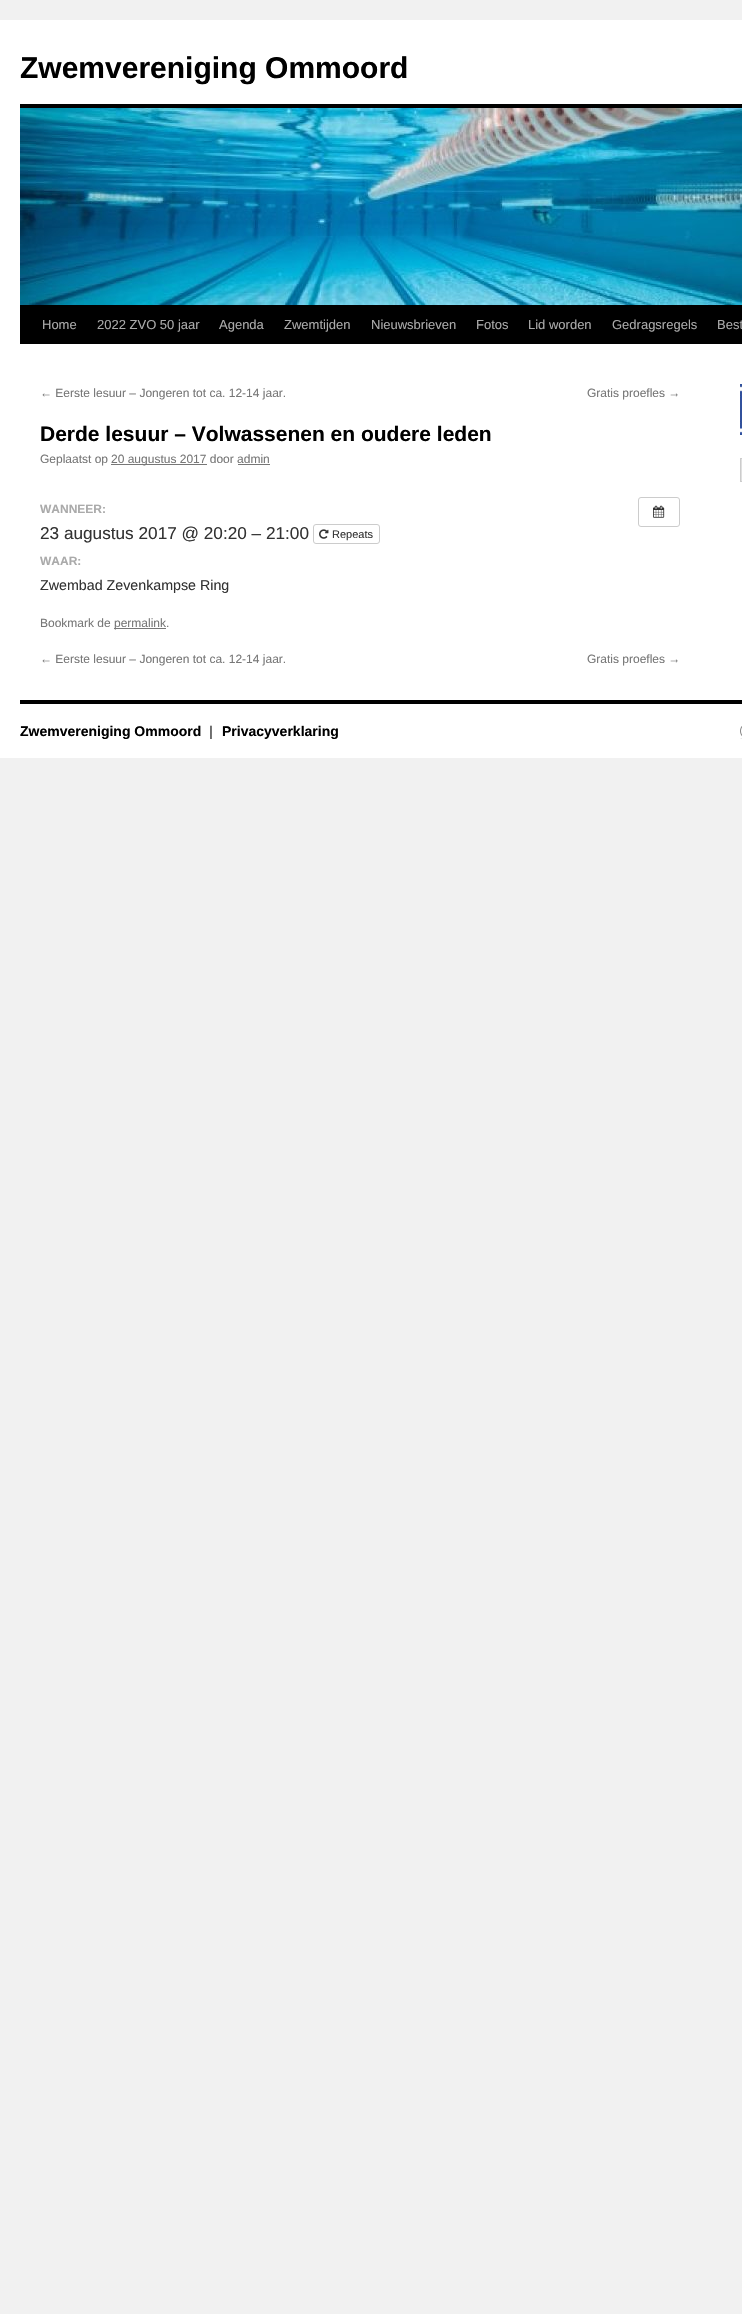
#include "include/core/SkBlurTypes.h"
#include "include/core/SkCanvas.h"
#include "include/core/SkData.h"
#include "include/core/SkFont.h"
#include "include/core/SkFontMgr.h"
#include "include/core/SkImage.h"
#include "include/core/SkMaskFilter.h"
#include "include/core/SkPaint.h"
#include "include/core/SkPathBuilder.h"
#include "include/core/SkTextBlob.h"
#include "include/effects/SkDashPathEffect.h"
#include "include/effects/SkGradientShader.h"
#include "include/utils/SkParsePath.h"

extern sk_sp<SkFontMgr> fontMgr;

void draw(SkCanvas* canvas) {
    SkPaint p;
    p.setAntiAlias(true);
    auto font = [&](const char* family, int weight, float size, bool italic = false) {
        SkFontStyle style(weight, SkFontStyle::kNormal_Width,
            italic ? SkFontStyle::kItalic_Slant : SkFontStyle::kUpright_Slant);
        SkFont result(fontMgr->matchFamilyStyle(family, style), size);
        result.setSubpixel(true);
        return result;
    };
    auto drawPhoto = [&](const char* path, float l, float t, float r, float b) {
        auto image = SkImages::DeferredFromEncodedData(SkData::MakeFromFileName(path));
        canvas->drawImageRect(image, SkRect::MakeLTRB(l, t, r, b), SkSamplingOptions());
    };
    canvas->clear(0xFFF1F1F1);
    p.setColor(0xFFFFFFFF);
    canvas->drawRect(SkRect::MakeLTRB(0, 20, 742, 758), p);
    auto font1 = font("Liberation Sans", 700, 30);
    p.setColor(0xFF000000);
    canvas->drawString("Zwemvereniging Ommoord", 20, 78, font1, p);
    canvas->drawRect(SkRect::MakeLTRB(20, 104, 742, 108), p);
    canvas->drawRect(SkRect::MakeLTRB(20, 305, 742, 344), p);
    drawPhoto("media/1.png", 20, 108, 742, 305);
    auto font2 = font("Liberation Sans", 400, 13);
    p.setColor(0xFFAAAAAA);
    {
        const struct { const char* s; float x, y; } items[] = {
            {"Home", 42, 329},
            {"2022 ZVO 50 jaar", 97, 329},
            {"Agenda", 219, 329},
            {"Zwemtijden", 284, 329},
            {"Nieuwsbrieven", 371, 329},
            {"Fotos", 476, 329},
            {"Lid worden", 528, 329},
            {"Gedragsregels", 612, 329},
            {"Best", 717, 329},
        };
        for (auto [s, x, y] : items) {
            canvas->drawString(s, x, y, font2, p);
        }
    }
    auto font3 = font("Liberation Sans", 400, 12);
    p.setColor(0xFF777777);
    canvas->drawString("← Eerste lesuur – Jongeren tot ca. 12-14 jaar.", 40, 397, font3, p);
    canvas->drawString("Gratis proefles →", 587, 397, font3, p);
    auto font4 = font("Liberation Sans", 700, 21);
    p.setColor(0xFF000000);
    canvas->drawString("Derde lesuur – Volwassenen en oudere leden", 40, 441, font4, p);
    p.setColor(0xFF777777);
    canvas->drawString("Geplaatst op", 40, 463, font3, p);
    canvas->drawRect(SkRect::MakeLTRB(111, 464, 207, 465), p);
    canvas->drawString("20 augustus 2017 door admin", 111, 463, font3, p);
    canvas->drawRect(SkRect::MakeLTRB(238, 464, 270, 465), p);
    auto font5 = font("Liberation Sans", 700, 12);
    p.setColor(0xFFAAAAAA);
    canvas->drawString("WANNEER:", 40, 513, font5, p);
    auto font6 = font("Liberation Sans", 400, 17.2f);
    p.setColor(0xFF333333);
    canvas->drawString("23 augustus 2017 @ 20:20 – 21:00", 40, 539, font6, p);
    p.setStyle(SkPaint::kStroke_Style);
    p.setStrokeWidth(1);
    p.setColor(0xFFCCCCCC);
    canvas->drawRoundRect(SkRect::MakeLTRB(313.5f, 524.5f, 379.5f, 543.5f), 2.5f, 2.5f, p);
    drawPhoto("media/2.png", 319, 529, 329, 539);
    auto font7 = font("Liberation Sans", 400, 11);
    p.setStyle(SkPaint::kFill_Style);
    p.setColor(0xFF333333);
    canvas->drawString("Repeats", 332, 538, font7, p);
    p.setColor(0xFFAAAAAA);
    canvas->drawString("WAAR:", 40, 565, font5, p);
    auto font8 = font("Liberation Sans", 400, 14.25f);
    p.setColor(0xFF333333);
    canvas->drawString("Zwembad Zevenkampse Ring", 40, 590, font8, p);
    p.setStyle(SkPaint::kStroke_Style);
    p.setColor(0xFFCCCCCC);
    canvas->drawRoundRect(SkRect::MakeLTRB(638.5f, 497.5f, 679.5f, 526.5f), 2.5f, 2.5f, p);
    drawPhoto("media/3.png", 653, 505, 665, 518);
    p.setStyle(SkPaint::kFill_Style);
    p.setColor(0xFF777777);
    canvas->drawString("Bookmark de", 40, 627, font3, p);
    canvas->drawRect(SkRect::MakeLTRB(114, 628, 166, 629), p);
    {
        const struct { const char* s; float x, y; } items[] = {
            {"permalink.", 114, 627},
            {"← Eerste lesuur – Jongeren tot ca. 12-14 jaar.", 40, 663},
            {"Gratis proefles →", 587, 663},
        };
        for (auto [s, x, y] : items) {
            canvas->drawString(s, x, y, font3, p);
        }
    }
    drawPhoto("media/4.png", 740, 384, 742, 435);
    canvas->save();
    canvas->clipRect(SkRect::MakeLTRB(741, 459, 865, 481));
    p.setColor(0xFFE0E0E0);
    canvas->drawPath(SkPathBuilder(SkPathFillType::kEvenOdd).moveTo(642, 360).lineTo(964, 360).lineTo(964, 580).lineTo(642, 580).close().moveTo(742, 460).lineTo(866, 460).lineTo(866, 482).lineTo(742, 482).close().detach(), p);
    canvas->restore();
    p.setStyle(SkPaint::kStroke_Style);
    p.setColor(0xFFCCCCCC);
    canvas->drawRect(SkRect::MakeLTRB(740.5f, 458.5f, 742.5f, 481.5f), p);
    p.setStyle(SkPaint::kFill_Style);
    p.setColor(0xFF000000);
    canvas->drawRect(SkRect::MakeLTRB(20, 700, 742, 704), p);
    auto font9 = font("Liberation Sans", 700, 14);
    canvas->drawString("Zwemvereniging Ommoord", 20, 736, font9, p);
    p.setColor(0xFF666666);
    canvas->drawString("|", 209, 736, font9, p);
    p.setColor(0xFF000000);
    canvas->drawString("Privacyverklaring", 222, 736, font9, p);
    drawPhoto("media/5.png", 740, 726, 742, 739);
}
